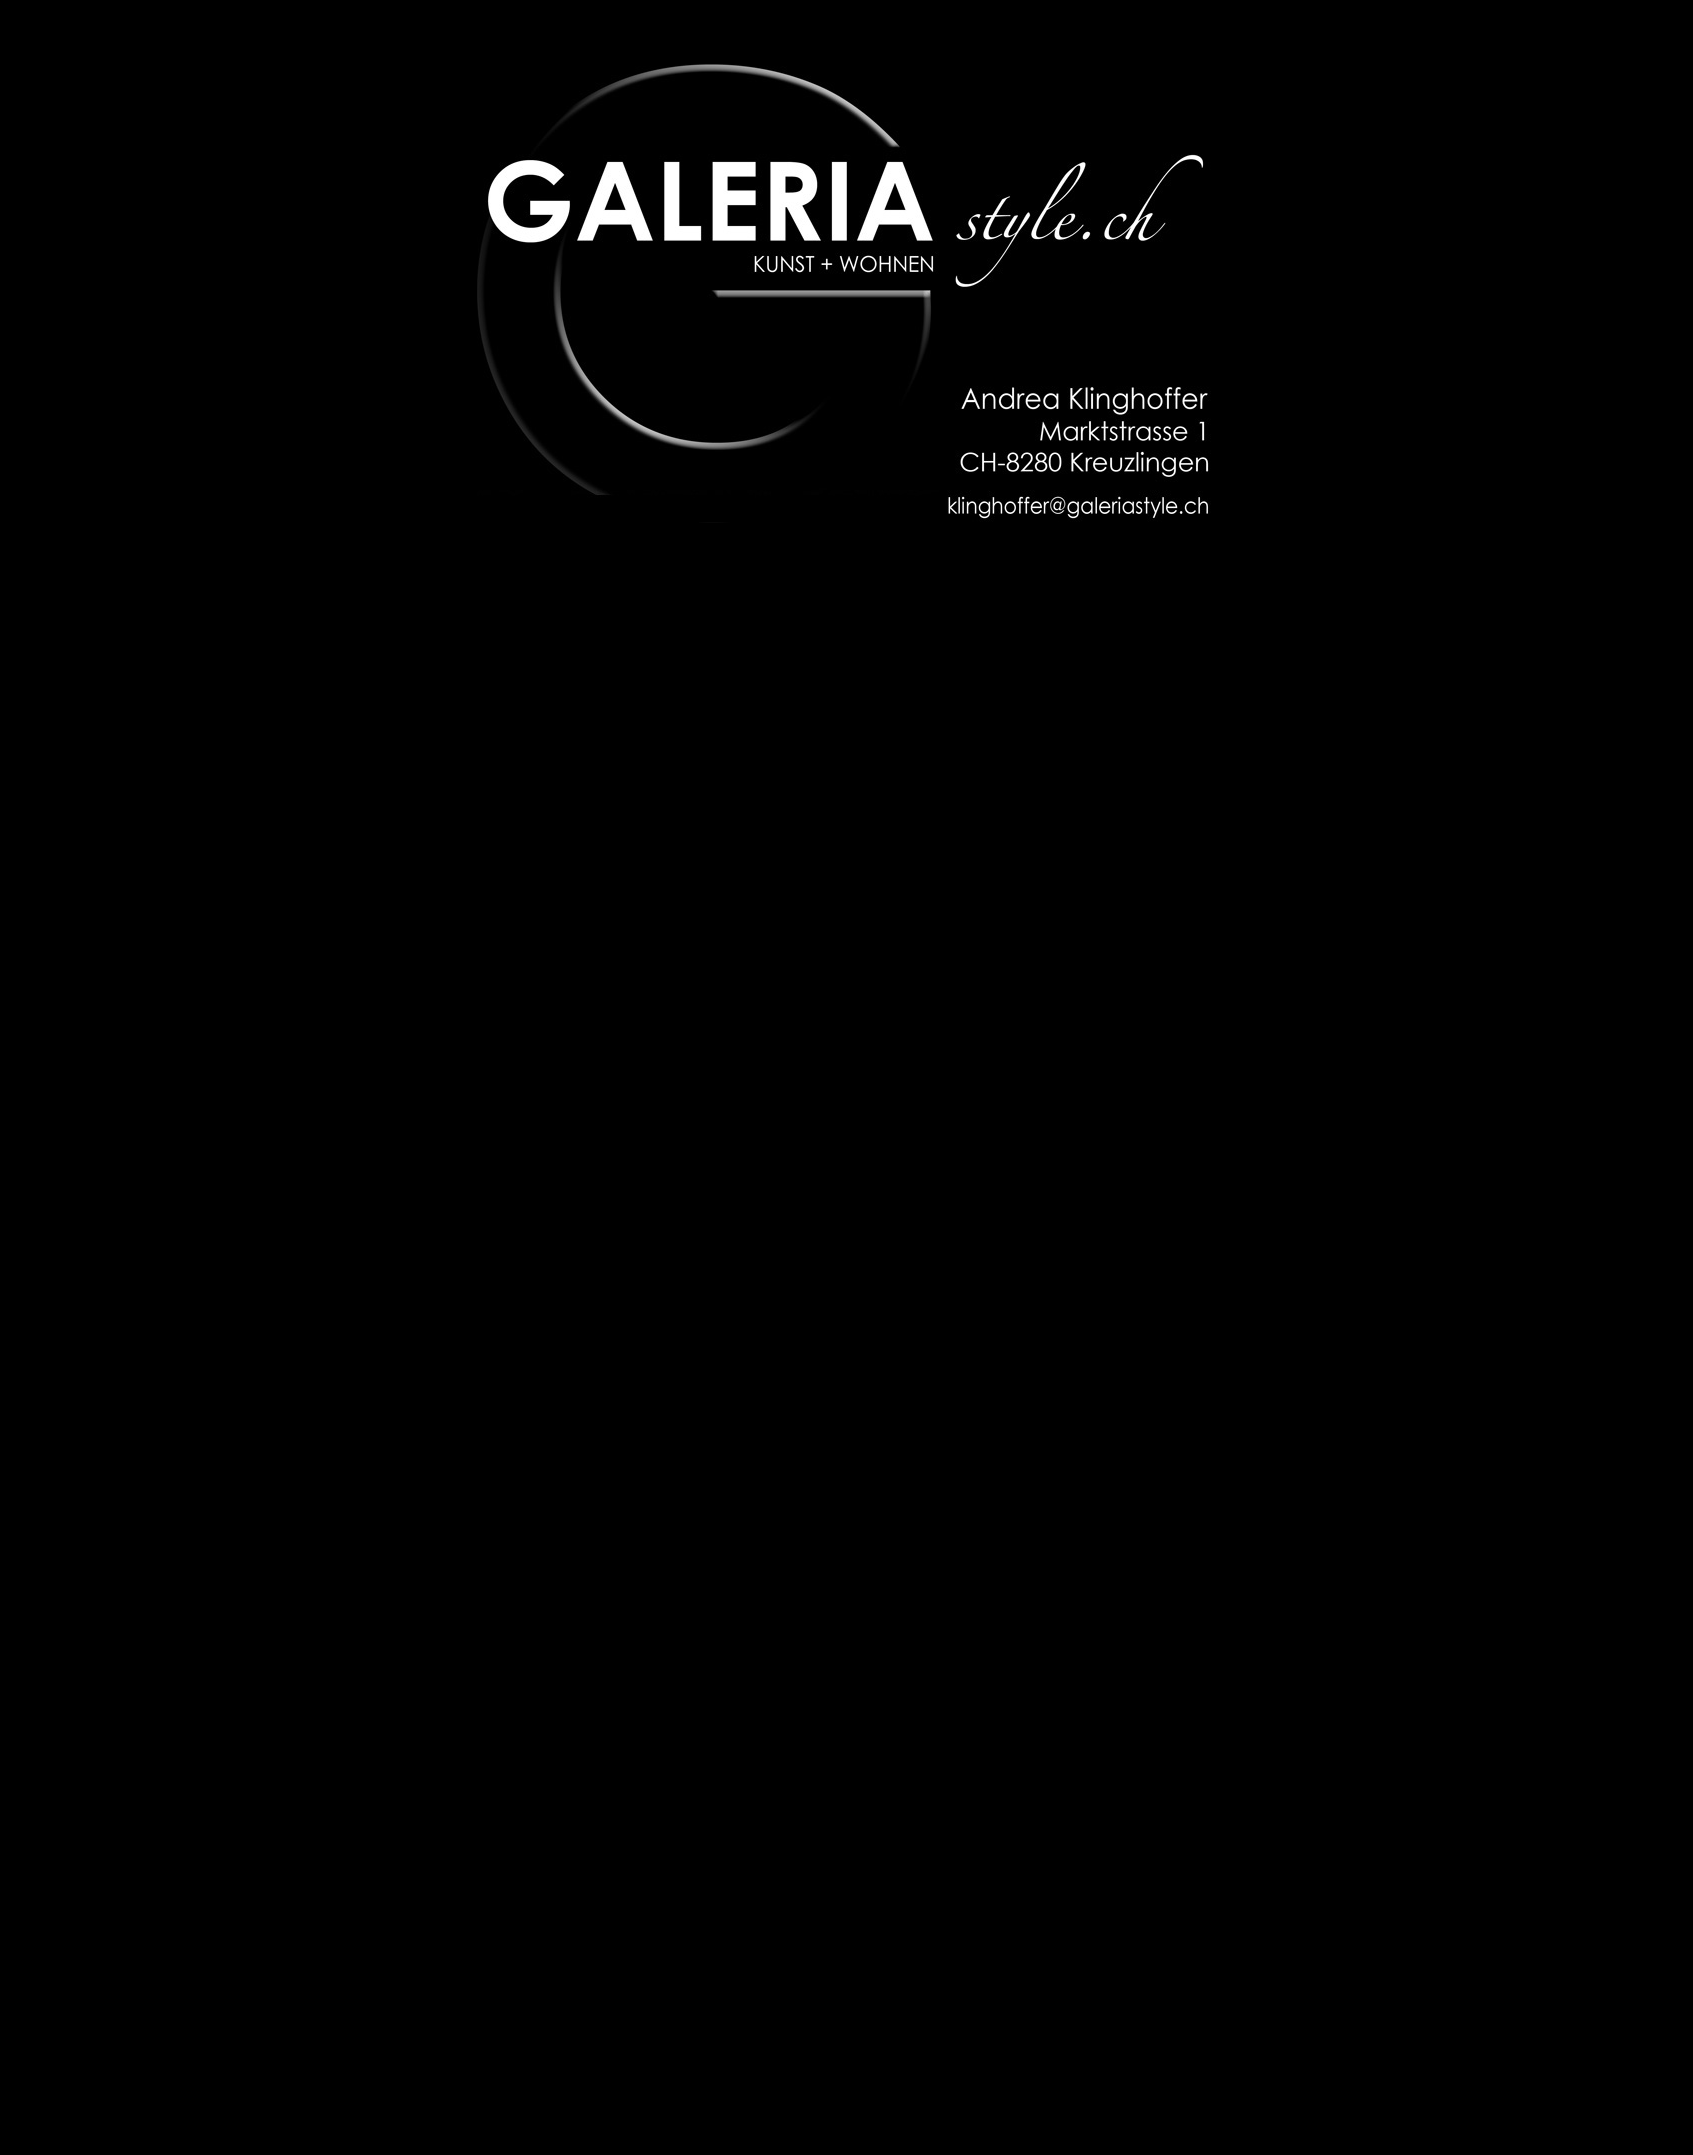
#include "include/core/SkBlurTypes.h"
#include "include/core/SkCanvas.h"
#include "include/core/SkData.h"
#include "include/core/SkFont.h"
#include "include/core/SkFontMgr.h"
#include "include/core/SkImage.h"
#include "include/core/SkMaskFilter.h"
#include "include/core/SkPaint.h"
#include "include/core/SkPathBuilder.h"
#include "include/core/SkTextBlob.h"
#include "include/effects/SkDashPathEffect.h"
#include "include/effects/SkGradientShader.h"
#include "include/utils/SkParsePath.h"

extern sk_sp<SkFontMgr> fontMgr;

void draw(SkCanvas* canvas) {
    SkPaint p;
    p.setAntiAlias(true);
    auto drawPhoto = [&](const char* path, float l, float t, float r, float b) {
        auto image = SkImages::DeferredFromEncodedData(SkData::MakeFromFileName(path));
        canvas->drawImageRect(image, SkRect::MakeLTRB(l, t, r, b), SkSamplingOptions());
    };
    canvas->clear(0xFF000000);
    drawPhoto("media/1.png", 477, 64, 1211, 523);
}
